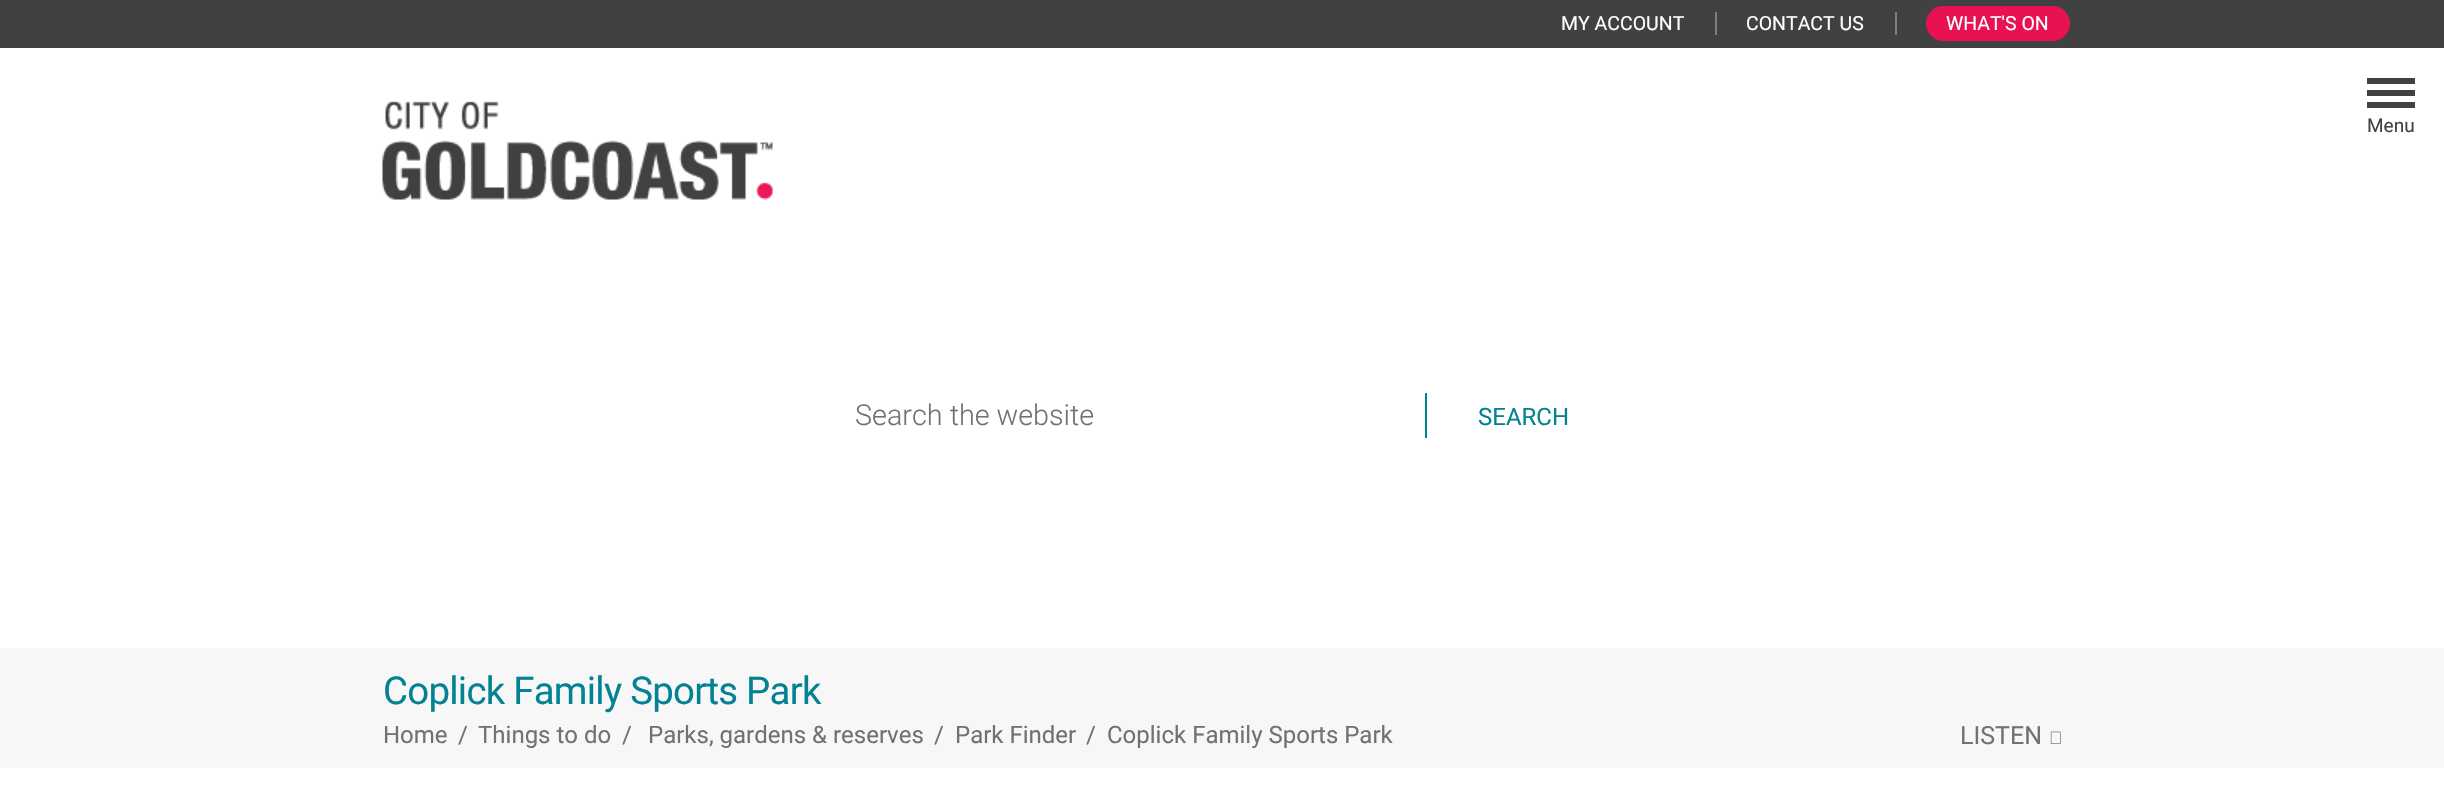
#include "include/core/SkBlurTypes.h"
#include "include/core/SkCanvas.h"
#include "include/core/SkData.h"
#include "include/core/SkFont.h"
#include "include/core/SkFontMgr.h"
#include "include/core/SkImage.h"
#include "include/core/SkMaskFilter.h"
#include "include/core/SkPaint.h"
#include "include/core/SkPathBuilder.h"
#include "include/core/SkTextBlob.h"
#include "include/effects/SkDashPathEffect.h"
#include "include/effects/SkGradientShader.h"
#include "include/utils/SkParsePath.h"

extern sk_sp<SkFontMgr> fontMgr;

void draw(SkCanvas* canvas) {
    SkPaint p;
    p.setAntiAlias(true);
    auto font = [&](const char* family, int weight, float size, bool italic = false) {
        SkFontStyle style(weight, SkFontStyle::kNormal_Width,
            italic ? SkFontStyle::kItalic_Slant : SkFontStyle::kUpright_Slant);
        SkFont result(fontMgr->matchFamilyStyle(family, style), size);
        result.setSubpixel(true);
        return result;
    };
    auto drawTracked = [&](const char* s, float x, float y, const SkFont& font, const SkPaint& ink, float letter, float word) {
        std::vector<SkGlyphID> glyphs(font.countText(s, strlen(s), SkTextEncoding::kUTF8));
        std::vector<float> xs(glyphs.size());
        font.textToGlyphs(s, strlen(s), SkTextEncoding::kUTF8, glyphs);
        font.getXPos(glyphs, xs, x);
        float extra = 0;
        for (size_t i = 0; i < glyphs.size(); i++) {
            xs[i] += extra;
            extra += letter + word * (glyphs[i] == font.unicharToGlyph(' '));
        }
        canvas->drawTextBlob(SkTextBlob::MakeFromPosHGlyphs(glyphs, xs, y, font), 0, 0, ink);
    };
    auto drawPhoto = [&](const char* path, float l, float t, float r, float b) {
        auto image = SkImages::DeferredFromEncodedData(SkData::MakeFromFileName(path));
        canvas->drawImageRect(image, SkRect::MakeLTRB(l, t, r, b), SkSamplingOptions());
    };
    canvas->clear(0xFFFFFFFF);
    p.setColor(0xFF414142);
    canvas->drawRect(SkRect::MakeLTRB(0, 0, 2444, 48), p);
    auto font1 = font("Roboto", 400, 19.5f);
    p.setColor(0xFFFFFFFF);
    canvas->drawString("MY ACCOUNT", 1561, 30, font1, p);
    p.setColor(0xFF808080);
    canvas->drawRect(SkRect::MakeLTRB(1715, 12, 1717, 35), p);
    p.setColor(0xFFFFFFFF);
    canvas->drawString("CONTACT US", 1746, 30, font1, p);
    p.setColor(0xFF808080);
    canvas->drawRect(SkRect::MakeLTRB(1895, 12, 1897, 35), p);
    p.setColor(0xFFE81152);
    canvas->drawRoundRect(SkRect::MakeLTRB(1926, 6, 2070, 41), 17.5f, 17.5f, p);
    p.setColor(0xFFFFFFFF);
    canvas->drawString("WHAT'S ON", 1946, 30, font1, p);
    {
        const struct { float l, t, r, b; SkColor color; } items[] = {
            {2367, 90, 2415, 96, 0xFF414142},
            {2367, 78, 2415, 84, 0xFF414142},
            {2367, 102, 2415, 108, 0xFF414142},
        };
        for (auto [l, t, r, b, color] : items) {
            p.setColor(color);
            canvas->drawRect(SkRect::MakeLTRB(l, t, r, b), p);
        }
    }
    auto font2 = font("Roboto", 400, 19);
    canvas->drawString("Menu", 2367, 132, font2, p);
    drawPhoto("media/1.png", 382, 101, 773, 200);
    auto font3 = font("Roboto", 300, 28.75f);
    p.setColor(0xFF717171);
    canvas->drawString("Search the website", 855, 425, font3, p);
    p.setColor(0xFF038293);
    canvas->drawRect(SkRect::MakeLTRB(1425, 393, 1427, 438), p);
    auto font4 = font("Roboto", 400, 24);
    canvas->drawString("SEARCH", 1478, 425, font4, p);
    p.setColor(0xFFF7F7F7);
    canvas->drawRect(SkRect::MakeLTRB(0, 648, 2444, 768), p);
    auto font5 = font("Roboto", 400, 38.4f);
    p.setColor(0xFF038293);
    drawTracked("Coplick Family Sports Park", 383, 704, font5, p, -0.75f, 0);
    p.setColor(0xFF717171);
    {
        const struct { const char* s; float x, y; } items[] = {
            {"Home", 383, 743},
            {"/", 458, 743},
            {"Things to do", 478, 743},
            {"/", 622, 743},
            {"Parks, gardens & reserves", 648, 743},
            {"/", 934, 743},
            {"Park Finder", 955, 743},
            {"/", 1086, 743},
            {"Coplick Family Sports Park", 1107, 743},
        };
        for (auto [s, x, y] : items) {
            canvas->drawString(s, x, y, font4, p);
        }
    }
    auto font6 = font("Roboto", 400, 25);
    canvas->drawString("LISTEN", 1960, 744, font6, p);
    drawPhoto("media/2.png", 2050, 731, 2061, 744);
}
